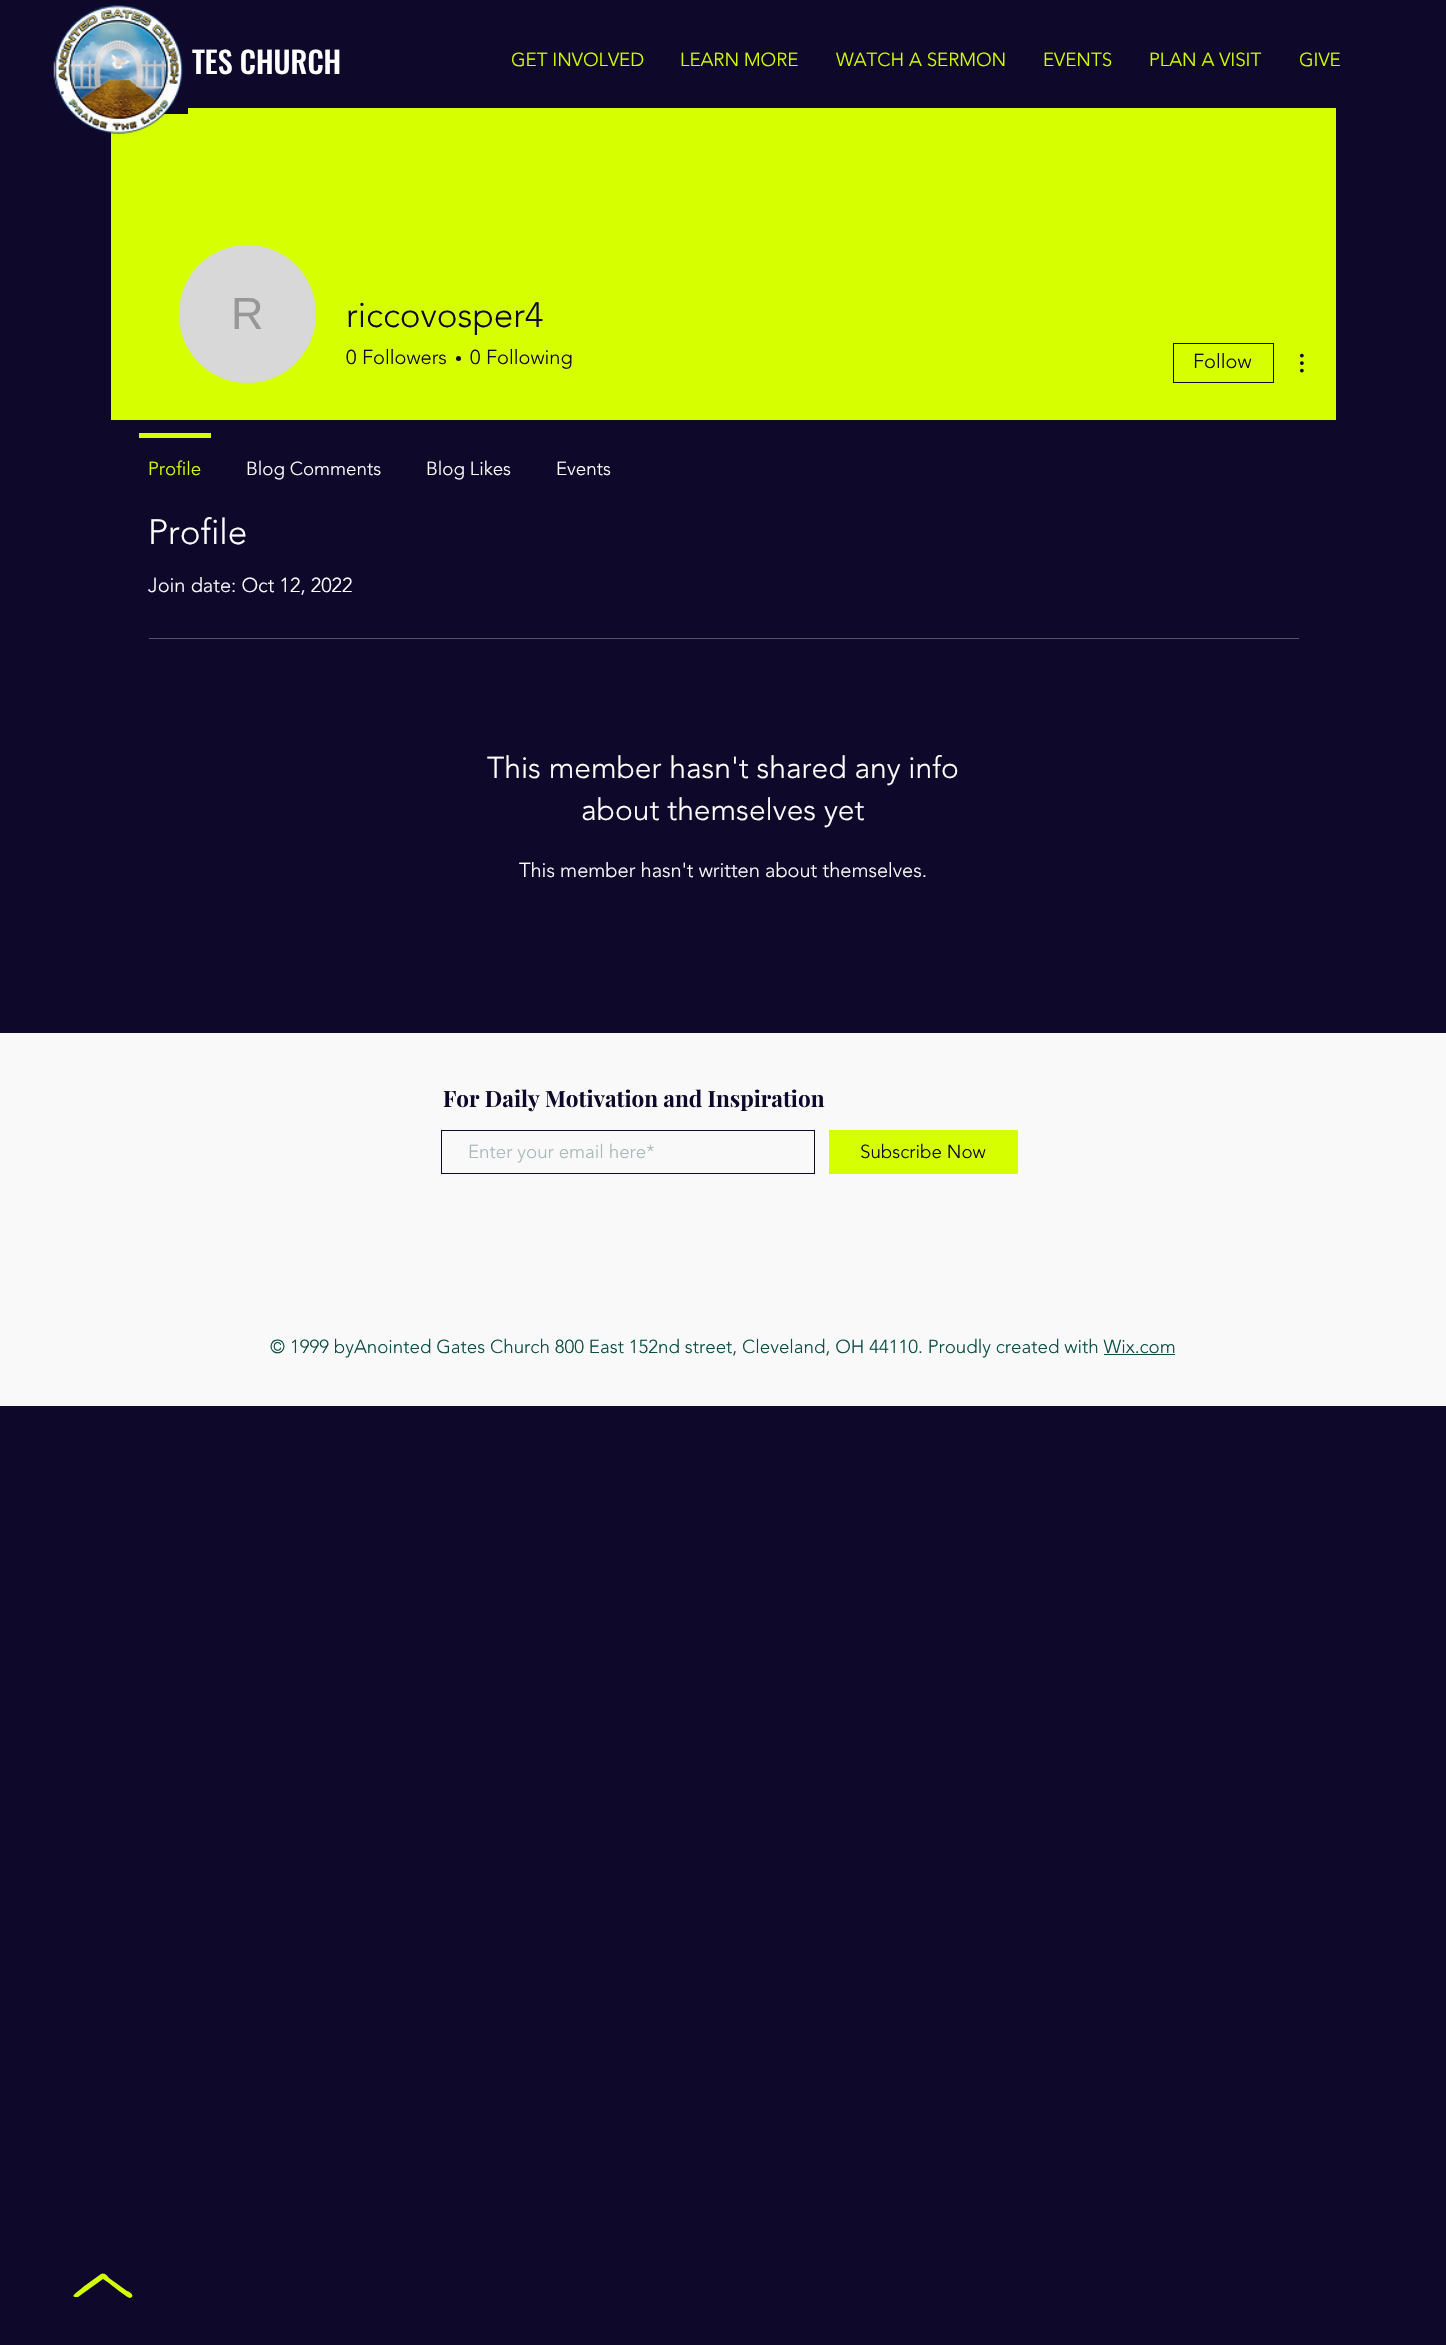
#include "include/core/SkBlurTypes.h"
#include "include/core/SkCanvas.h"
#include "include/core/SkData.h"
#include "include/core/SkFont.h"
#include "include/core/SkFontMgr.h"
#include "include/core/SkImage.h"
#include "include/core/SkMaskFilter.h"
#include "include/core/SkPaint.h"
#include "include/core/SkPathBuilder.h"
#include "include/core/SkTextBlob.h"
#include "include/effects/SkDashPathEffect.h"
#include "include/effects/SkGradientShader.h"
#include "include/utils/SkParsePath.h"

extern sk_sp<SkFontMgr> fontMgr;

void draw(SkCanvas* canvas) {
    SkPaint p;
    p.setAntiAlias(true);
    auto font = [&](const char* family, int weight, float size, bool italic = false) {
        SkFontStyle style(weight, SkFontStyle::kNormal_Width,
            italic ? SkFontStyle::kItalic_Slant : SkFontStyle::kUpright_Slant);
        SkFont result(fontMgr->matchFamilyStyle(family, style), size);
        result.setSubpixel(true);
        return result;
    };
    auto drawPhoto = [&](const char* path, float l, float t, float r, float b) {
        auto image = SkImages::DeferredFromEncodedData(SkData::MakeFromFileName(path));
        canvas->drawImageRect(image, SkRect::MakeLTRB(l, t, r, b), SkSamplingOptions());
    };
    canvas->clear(0xFF0E092B);
    p.setColor(0xFFD6FF00);
    canvas->drawRect(SkRect::MakeLTRB(111, 108, 1336, 420), p);
    p.setColor(0xFF0E092B);
    canvas->drawRect(SkRect::MakeLTRB(111, 108, 188, 114), p);
    drawPhoto("media/1.png", 53, 5, 183, 134);
    auto font1 = font("Oswald", 500, 30);
    p.setColor(0xFFFFFFFF);
    canvas->drawString("TES CHURCH", 192, 74, font1, p);
    auto font2 = font("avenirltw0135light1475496", 300, 18.75f);
    p.setColor(0xFFD6FF00);
    {
        const struct { const char* s; float x, y; } items[] = {
            {"GET INVOLVED", 511, 66},
            {"LEARN MORE", 680, 66},
            {"WATCH A SERMON", 836, 66},
            {"EVENTS", 1043, 66},
            {"PLAN A VISIT", 1149, 66},
            {"GIVE", 1299, 66},
        };
        for (auto [s, x, y] : items) {
            canvas->drawString(s, x, y, font2, p);
        }
    }
    p.setColor(0xFFD8D8D8);
    canvas->drawRoundRect(SkRect::MakeLTRB(179, 245, 316, 383), 68.5f, 68.5f, p);
    auto font3 = font("Liberation Sans", 400, 45);
    p.setColor(0xFF979797);
    canvas->drawString("R", 231, 329, font3, p);
    auto font4 = font("avenirltw0135light1475496", 300, 35);
    p.setColor(0xFF0E092B);
    canvas->drawString("riccovosper4", 346, 327, font4, p);
    auto font5 = font("avenirltw0135light1475496", 300, 20);
    canvas->drawString("0", 346, 364, font5, p);
    canvas->drawString("Followers", 362, 364, font5, p);
    canvas->drawCircle(458.5f, 358.5f, 2.5f, p);
    canvas->drawString("0", 470, 364, font5, p);
    canvas->drawString("Following", 486, 364, font5, p);
    p.setStyle(SkPaint::kStroke_Style);
    p.setStrokeWidth(1);
    canvas->drawRect(SkRect::MakeLTRB(1173.5f, 343.5f, 1273.5f, 382.5f), p);
    p.setStyle(SkPaint::kFill_Style);
    canvas->drawString("Follow", 1193, 368, font5, p);
    drawPhoto("media/2.png", 1300, 353, 1304, 373);
    p.setColor(0xFFD6FF00);
    canvas->drawRect(SkRect::MakeLTRB(139, 433, 211, 438), p);
    canvas->drawString("Profile", 148, 475, font2, p);
    p.setColor(0xFFFFFFFF);
    {
        const struct { const char* s; float x, y; } items[] = {
            {"Blog Comments", 246, 475},
            {"Blog Likes", 426, 475},
            {"Events", 556, 475},
        };
        for (auto [s, x, y] : items) {
            canvas->drawString(s, x, y, font2, p);
        }
    }
    canvas->drawString("Profile", 148, 544, font4, p);
    canvas->drawString("Join date: Oct 12, 2022", 148, 592, font5, p);
    p.setColor(0xFF56536B);
    canvas->drawRect(SkRect::MakeLTRB(149, 638, 1299, 639), p);
    auto font6 = font("avenirltw0135light1475496", 300, 30);
    p.setColor(0xFFFFFFFF);
    canvas->drawString("This member hasn't shared any info", 487, 778, font6, p);
    canvas->drawString("about themselves yet", 581, 820, font6, p);
    canvas->drawString("This member hasn't written about themselves.", 519, 877, font5, p);
    p.setColor(0xFFF9F9F9);
    canvas->drawRect(SkRect::MakeLTRB(0, 1033, 1446, 1406), p);
    auto font7 = font("Playfair Display", 700, 22.5f);
    p.setColor(0xFF0E092B);
    canvas->drawString("For Daily Motivation and Inspiration", 443, 1107, font7, p);
    p.setStyle(SkPaint::kStroke_Style);
    canvas->drawRect(SkRect::MakeLTRB(441.5f, 1130.5f, 814.5f, 1173.5f), p);
    p.setStyle(SkPaint::kFill_Style);
    p.setColor(0xFFA8B9BA);
    canvas->drawString("Enter your email here*", 468, 1158, font2, p);
    p.setColor(0xFFD6FF00);
    canvas->drawRect(SkRect::MakeLTRB(829, 1130, 1018, 1174), p);
    p.setColor(0xFF0E092B);
    canvas->drawString("Subscribe Now", 860, 1158, font2, p);
    p.setColor(0xFF0B4D44);
    canvas->drawString("© 1999 byAnointed Gates Church 800 East 152nd street, Cleveland, OH 44110. Proudly created with Wix.com", 270, 1353, font2, p);
    canvas->drawRect(SkRect::MakeLTRB(1104, 1354, 1175, 1355), p);
    p.setColor(0xFFD6FF00);
    canvas->drawPath(SkPathBuilder().moveTo(130, 2298).cubicTo(127, 2298, 107, 2281, 103, 2279).lineTo(78, 2297).lineTo(75, 2297).cubicTo(70, 2296, 78, 2292, 83, 2287).lineTo(101, 2274).cubicTo(104, 2272, 108, 2276, 109, 2278).lineTo(127, 2291).cubicTo(128, 2291, 134, 2294, 132, 2297).close().detach(), p);
}
